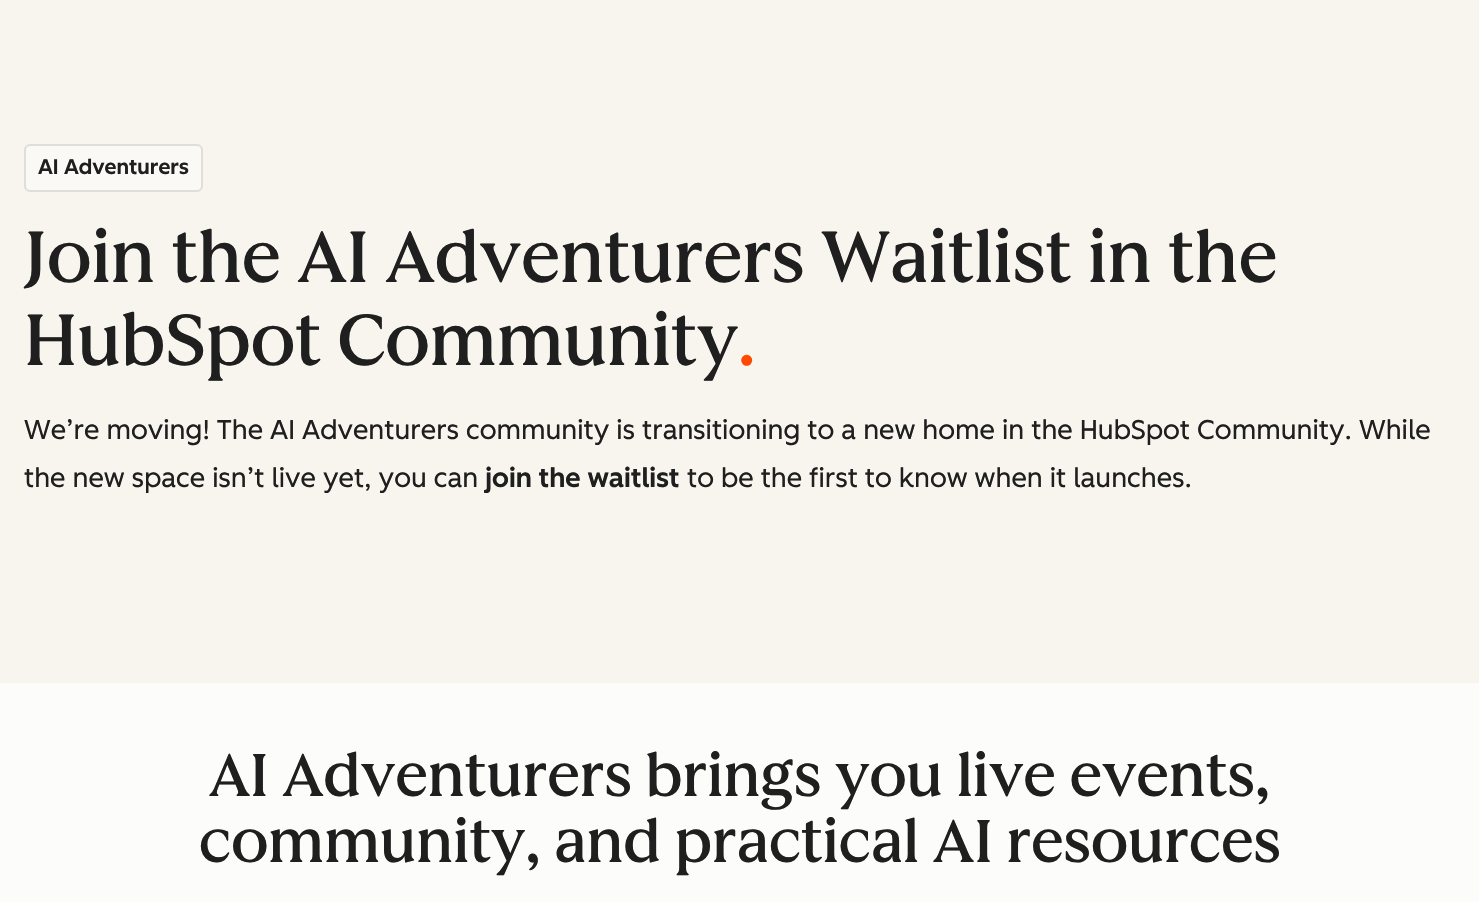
#include "include/core/SkBlurTypes.h"
#include "include/core/SkCanvas.h"
#include "include/core/SkData.h"
#include "include/core/SkFont.h"
#include "include/core/SkFontMgr.h"
#include "include/core/SkImage.h"
#include "include/core/SkMaskFilter.h"
#include "include/core/SkPaint.h"
#include "include/core/SkPathBuilder.h"
#include "include/core/SkTextBlob.h"
#include "include/effects/SkDashPathEffect.h"
#include "include/effects/SkGradientShader.h"
#include "include/utils/SkParsePath.h"

extern sk_sp<SkFontMgr> fontMgr;

void draw(SkCanvas* canvas) {
    SkPaint p;
    p.setAntiAlias(true);
    auto font = [&](const char* family, int weight, float size, bool italic = false) {
        SkFontStyle style(weight, SkFontStyle::kNormal_Width,
            italic ? SkFontStyle::kItalic_Slant : SkFontStyle::kUpright_Slant);
        SkFont result(fontMgr->matchFamilyStyle(family, style), size);
        result.setSubpixel(true);
        return result;
    };
    canvas->clear(0xFFFCFCFA);
    p.setColor(0xFFF8F5EE);
    canvas->drawRect(SkRect::MakeLTRB(0, 0, 1479, 683), p);
    p.setColor(0xFFFBF9F5);
    canvas->drawRoundRect(SkRect::MakeLTRB(25, 145, 202, 191), 5, 5, p);
    p.setStyle(SkPaint::kStroke_Style);
    p.setStrokeWidth(2);
    p.setColor(0xFFDFDEDA);
    canvas->drawRoundRect(SkRect::MakeLTRB(25, 145, 202, 191), 5, 5, p);
    auto font1 = font("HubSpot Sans", 500, 21);
    p.setStyle(SkPaint::kFill_Style);
    p.setColor(0xFF1F1F1F);
    canvas->drawString("AI Adventurers", 38, 174, font1, p);
    auto font2 = font("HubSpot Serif", 500, 72);
    canvas->drawString("Join the AI Adventurers Waitlist in the", 24, 282, font2, p);
    canvas->drawString("HubSpot Community", 24, 365, font2, p);
    p.setColor(0xFFFF4800);
    canvas->drawString(".", 738, 365, font2, p);
    auto font3 = font("HubSpot Sans", 400, 27);
    p.setColor(0xFF1F1F1F);
    canvas->drawString("We’re moving! The AI Adventurers community is transitioning to a new home in the HubSpot Community. While", 24, 439, font3, p);
    canvas->drawString("the new space isn’t live yet, you can", 24, 487, font3, p);
    auto font4 = font("HubSpot Sans", 500, 27);
    canvas->drawString("join the waitlist", 485, 487, font4, p);
    canvas->drawString("to be the first to know when it launches.", 687, 487, font3, p);
    auto font5 = font("HubSpot Serif", 500, 60);
    canvas->drawString("AI Adventurers brings you live events,", 209, 796, font5, p);
    canvas->drawString("community, and practical AI resources", 199, 862, font5, p);
}
